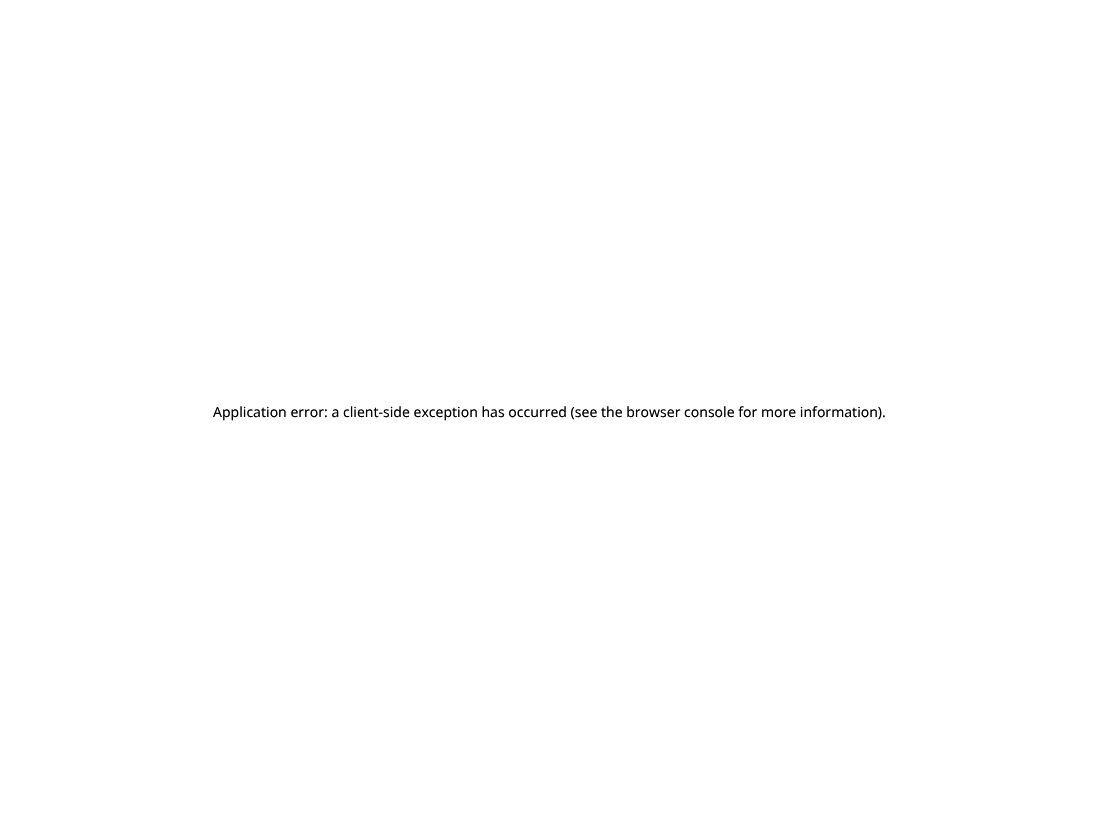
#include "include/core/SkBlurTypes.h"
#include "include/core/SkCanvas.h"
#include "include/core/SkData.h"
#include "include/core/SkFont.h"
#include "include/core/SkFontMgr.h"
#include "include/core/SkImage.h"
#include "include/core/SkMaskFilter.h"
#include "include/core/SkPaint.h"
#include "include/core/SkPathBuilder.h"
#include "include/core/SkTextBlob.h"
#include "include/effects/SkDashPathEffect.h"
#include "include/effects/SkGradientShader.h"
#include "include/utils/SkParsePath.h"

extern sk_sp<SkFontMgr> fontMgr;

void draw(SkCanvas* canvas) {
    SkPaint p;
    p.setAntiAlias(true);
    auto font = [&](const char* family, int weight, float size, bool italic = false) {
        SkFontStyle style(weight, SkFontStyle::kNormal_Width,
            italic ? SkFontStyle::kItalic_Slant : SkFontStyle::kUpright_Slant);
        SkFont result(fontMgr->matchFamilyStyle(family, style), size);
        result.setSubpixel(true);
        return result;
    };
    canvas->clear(0xFFFFFFFF);
    auto font1 = font("Noto Sans", 400, 14);
    p.setColor(0xFF000000);
    canvas->drawString("Application error: a client-side exception has occurred (see the browser console for more information).", 213, 417, font1, p);
}
